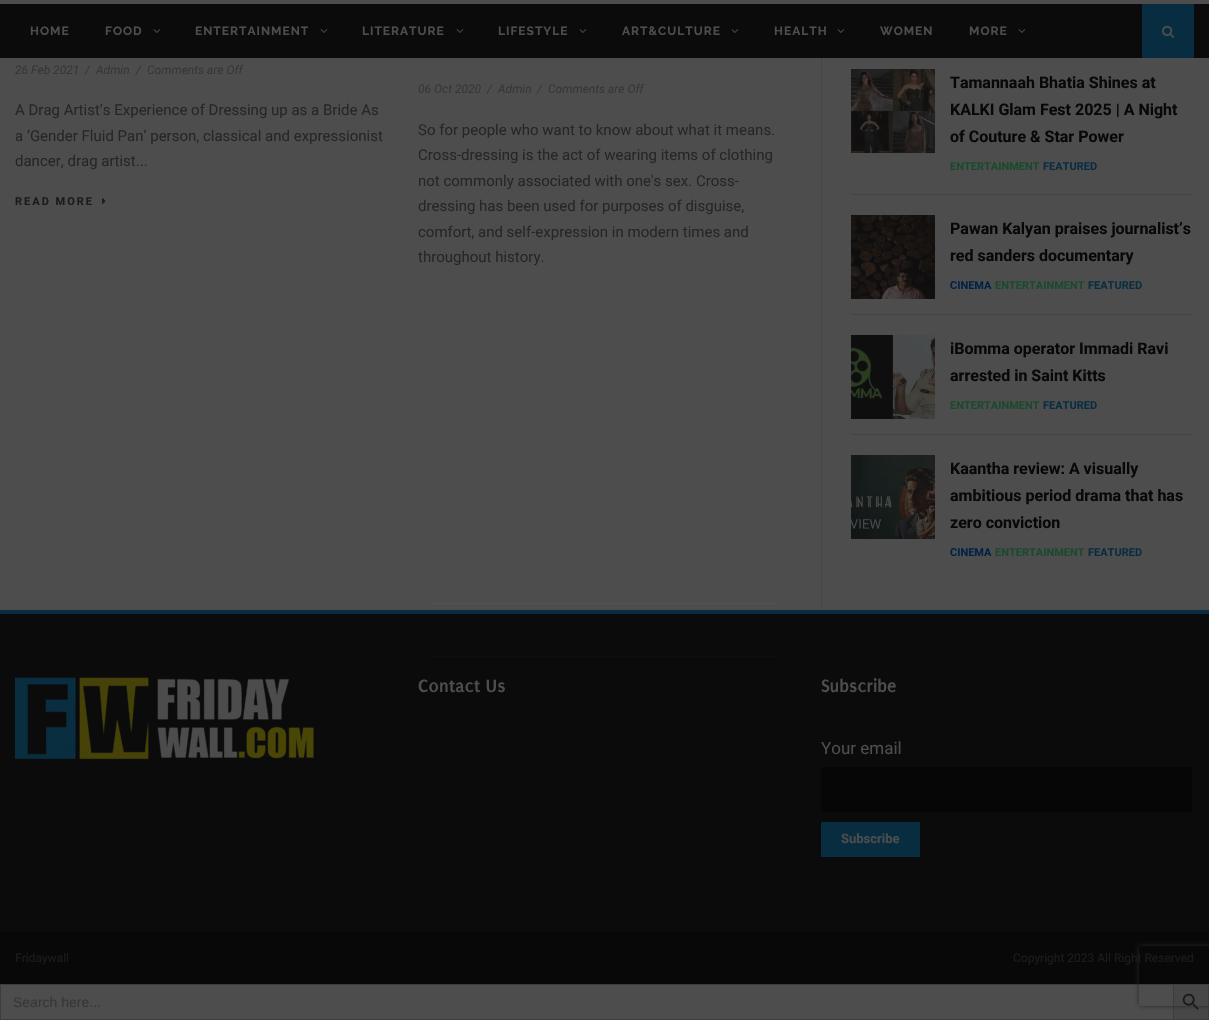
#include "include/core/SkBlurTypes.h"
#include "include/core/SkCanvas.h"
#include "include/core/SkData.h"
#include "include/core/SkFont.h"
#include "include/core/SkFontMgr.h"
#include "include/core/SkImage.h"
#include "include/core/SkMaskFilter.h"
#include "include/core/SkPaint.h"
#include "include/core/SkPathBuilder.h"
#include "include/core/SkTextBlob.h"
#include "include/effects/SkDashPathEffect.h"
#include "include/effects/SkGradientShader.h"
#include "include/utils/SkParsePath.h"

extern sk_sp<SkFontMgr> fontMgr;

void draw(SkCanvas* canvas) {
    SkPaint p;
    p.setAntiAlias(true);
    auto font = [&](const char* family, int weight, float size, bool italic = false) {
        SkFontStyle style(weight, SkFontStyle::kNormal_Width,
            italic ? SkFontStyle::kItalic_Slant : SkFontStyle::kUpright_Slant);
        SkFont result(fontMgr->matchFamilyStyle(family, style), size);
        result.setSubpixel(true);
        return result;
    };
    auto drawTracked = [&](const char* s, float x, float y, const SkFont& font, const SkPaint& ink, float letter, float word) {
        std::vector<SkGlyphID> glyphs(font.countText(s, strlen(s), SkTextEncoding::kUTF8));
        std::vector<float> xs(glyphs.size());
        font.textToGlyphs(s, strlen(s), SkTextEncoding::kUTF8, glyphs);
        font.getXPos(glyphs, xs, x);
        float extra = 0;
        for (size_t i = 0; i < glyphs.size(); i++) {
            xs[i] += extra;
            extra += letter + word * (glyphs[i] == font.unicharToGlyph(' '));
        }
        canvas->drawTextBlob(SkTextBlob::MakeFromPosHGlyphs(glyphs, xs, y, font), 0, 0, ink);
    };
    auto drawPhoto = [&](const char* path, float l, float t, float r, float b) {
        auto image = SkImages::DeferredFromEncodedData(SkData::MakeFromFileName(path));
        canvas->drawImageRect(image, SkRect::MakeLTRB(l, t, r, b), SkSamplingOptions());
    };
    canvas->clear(0xFF4D4D4D);
    p.setColor(0xFF0B0B0B);
    canvas->drawRect(SkRect::MakeLTRB(0, 4, 1209, 58), p);
    auto font1 = font("Raleway", 700, 12);
    p.setColor(0xFF4D4D4D);
    drawTracked("HOME", 30, 35, font1, p, 1, 0);
    drawTracked("FOOD", 105, 35, font1, p, 1, 0);
    drawPhoto("media/1.png", 153, 29, 161, 33);
    drawTracked("ENTERTAINMENT", 195, 35, font1, p, 1, 0);
    drawPhoto("media/1.png", 320, 29, 328, 33);
    drawTracked("LITERATURE", 362, 35, font1, p, 1, 0);
    drawPhoto("media/1.png", 456, 29, 464, 33);
    drawTracked("LIFESTYLE", 498, 35, font1, p, 1, 0);
    drawPhoto("media/1.png", 579, 29, 587, 33);
    drawTracked("ART&CULTURE", 622, 35, font1, p, 1, 0);
    drawPhoto("media/1.png", 731, 29, 739, 33);
    drawTracked("HEALTH", 774, 35, font1, p, 1, 0);
    drawPhoto("media/1.png", 837, 29, 845, 33);
    drawTracked("WOMEN", 880, 35, font1, p, 1, 0);
    drawTracked("MORE", 969, 35, font1, p, 1, 0);
    drawPhoto("media/1.png", 1018, 29, 1026, 33);
    p.setColor(0xFF092D40);
    canvas->drawRect(SkRect::MakeLTRB(1142, 4, 1194, 58), p);
    drawPhoto("media/2.png", 1162, 25, 1174, 38);
    auto font2 = font("Roboto", 400, 12, true);
    p.setColor(0xFF363636);
    {
        const struct { const char* s; float x, y; } items[] = {
            {"26 Feb 2021", 15, 74},
            {"/", 85, 74},
            {"Admin", 96, 74},
            {"/", 136, 74},
            {"Comments are Off", 147, 74},
        };
        for (auto [s, x, y] : items) {
            canvas->drawString(s, x, y, font2, p);
        }
    }
    auto font3 = font("Roboto", 400, 15);
    p.setColor(0xFF262626);
    {
        const struct { const char* s; float x, y; } items[] = {
            {"A Drag Artist’s Experience of Dressing up as a Bride As", 15, 115},
            {"a ‘Gender Fluid Pan’ person, classical and expressionist", 15, 141},
            {"dancer, drag artist...", 15, 166},
        };
        for (auto [s, x, y] : items) {
            canvas->drawString(s, x, y, font3, p);
        }
    }
    auto font4 = font("Roboto", 700, 11);
    p.setColor(0xFF1B1B1B);
    drawTracked("READ MORE", 15, 205, font4, p, 2, 0);
    drawPhoto("media/3.png", 102, 198, 106, 205);
    p.setColor(0xFF363636);
    {
        const struct { const char* s; float x, y; } items[] = {
            {"06 Oct 2020", 418, 93},
            {"/", 487, 93},
            {"Admin", 498, 93},
            {"/", 537, 93},
            {"Comments are Off", 548, 93},
        };
        for (auto [s, x, y] : items) {
            canvas->drawString(s, x, y, font2, p);
        }
    }
    p.setColor(0xFF262626);
    {
        const struct { const char* s; float x, y; } items[] = {
            {"So for people who want to know about what it means.", 418, 135},
            {"Cross-dressing is the act of wearing items of clothing", 418, 160},
            {"not commonly associated with one's sex. Cross-", 418, 186},
            {"dressing has been used for purposes of disguise,", 418, 211},
            {"comfort, and self-expression in modern times and", 418, 237},
            {"throughout history.", 418, 262},
        };
        for (auto [s, x, y] : items) {
            canvas->drawString(s, x, y, font3, p);
        }
    }
    p.setColor(0xFF454545);
    canvas->drawRect(SkRect::MakeLTRB(821, 58, 822, 610), p);
    canvas->drawRect(SkRect::MakeLTRB(851, 194, 1194, 195), p);
    drawPhoto("media/4.png", 851, 69, 935, 153);
    auto font5 = font("Roboto", 700, 16);
    p.setColor(0xFF080808);
    {
        const struct { const char* s; float x, y; } items[] = {
            {"Tamannaah Bhatia Shines at", 950, 88},
            {"KALKI Glam Fest 2025 | A Night", 950, 115},
            {"of Couture & Star Power", 950, 142},
        };
        for (auto [s, x, y] : items) {
            canvas->drawString(s, x, y, font5, p);
        }
    }
    p.setColor(0xFF1A492D);
    canvas->drawString("ENTERTAINMENT", 950, 170, font4, p);
    p.setColor(0xFF092D40);
    canvas->drawString("FEATURED", 1043, 170, font4, p);
    p.setColor(0xFF454545);
    canvas->drawRect(SkRect::MakeLTRB(851, 314, 1194, 315), p);
    drawPhoto("media/5.png", 851, 215, 935, 299);
    p.setColor(0xFF080808);
    canvas->drawString("Pawan Kalyan praises journalist’s", 950, 234, font5, p);
    canvas->drawString("red sanders documentary", 950, 261, font5, p);
    p.setColor(0xFF012145);
    canvas->drawString("CINEMA", 950, 289, font4, p);
    p.setColor(0xFF1A492D);
    canvas->drawString("ENTERTAINMENT", 995, 289, font4, p);
    p.setColor(0xFF092D40);
    canvas->drawString("FEATURED", 1088, 289, font4, p);
    p.setColor(0xFF454545);
    canvas->drawRect(SkRect::MakeLTRB(851, 434, 1194, 435), p);
    drawPhoto("media/6.png", 851, 335, 935, 419);
    p.setColor(0xFF080808);
    canvas->drawString("iBomma operator Immadi Ravi", 950, 354, font5, p);
    canvas->drawString("arrested in Saint Kitts", 950, 381, font5, p);
    p.setColor(0xFF1A492D);
    canvas->drawString("ENTERTAINMENT", 950, 409, font4, p);
    p.setColor(0xFF092D40);
    canvas->drawString("FEATURED", 1043, 409, font4, p);
    drawPhoto("media/7.png", 851, 455, 935, 539);
    p.setColor(0xFF080808);
    {
        const struct { const char* s; float x, y; } items[] = {
            {"Kaantha review: A visually", 950, 474},
            {"ambitious period drama that has", 950, 501},
            {"zero conviction", 950, 528},
        };
        for (auto [s, x, y] : items) {
            canvas->drawString(s, x, y, font5, p);
        }
    }
    p.setColor(0xFF012145);
    canvas->drawString("CINEMA", 950, 556, font4, p);
    p.setColor(0xFF1A492D);
    canvas->drawString("ENTERTAINMENT", 995, 556, font4, p);
    p.setColor(0xFF092D40);
    canvas->drawString("FEATURED", 1088, 556, font4, p);
    p.setColor(0xFF0B0B0B);
    canvas->drawRect(SkRect::MakeLTRB(0, 614, 1209, 932), p);
    p.setColor(0xFF092D40);
    canvas->drawRect(SkRect::MakeLTRB(0, 610, 1209, 614), p);
    drawPhoto("media/8.png", 15, 677, 314, 760);
    auto font6 = font("Puritan", 700, 19);
    p.setColor(0xFF4D4D4D);
    canvas->drawString("Contact Us", 418, 692, font6, p);
    canvas->drawString("Subscribe", 821, 692, font6, p);
    auto font7 = font("Roboto", 400, 17);
    canvas->drawString("Your email", 821, 754, font7, p);
    p.setColor(0xFF060606);
    canvas->drawRect(SkRect::MakeLTRB(821, 767, 1192, 812), p);
    p.setColor(0xFF092D40);
    canvas->drawRect(SkRect::MakeLTRB(821, 822, 920, 857), p);
    auto font8 = font("Roboto", 700, 13);
    p.setColor(0xFF4D4D4D);
    canvas->drawString("Subscribe", 841, 843, font8, p);
    p.setColor(0xFF080808);
    canvas->drawRect(SkRect::MakeLTRB(0, 932, 1209, 984), p);
    auto font9 = font("Roboto", 400, 12);
    p.setColor(0xFF1B1B1B);
    canvas->drawString("Fridaywall", 15, 962, font9, p);
    canvas->drawString("Copyright 2023 All Right Reserved", 1013, 962, font9, p);
    canvas->save();
    canvas->clipPath(SkPathBuilder().moveTo(434, 602).lineTo(776, 602).cubicTo(779, 602, 781, 604, 781, 607).lineTo(781, 652).cubicTo(781, 655, 779, 657, 776, 657).lineTo(434, 657).cubicTo(431, 657, 429, 655, 429, 652).lineTo(429, 607).cubicTo(429, 604, 431, 602, 434, 602).close().detach(), true);
    {
        const SkColor colors[] = {0xFF0D0E0E, 0xFF0D0D0E};
        const float stops[] = {0, 1};
        const SkPoint ends[] = {{430, 656}, {430, 709}};
        p.setShader(SkGradientShader::MakeLinear(ends, colors, stops, 2, SkTileMode::kClamp));
        p.setAlpha(255);
    }
    canvas->drawRect(SkRect::MakeLTRB(429, 656, 781, 657), p);
    canvas->restore();
    p.setShader(nullptr);
    p.setColor(0xFF525252);
    canvas->drawPath(SkPathBuilder().moveTo(434, 604).lineTo(776, 604).cubicTo(778, 604, 780, 606, 780, 608).lineTo(779, 605).lineTo(777, 603).lineTo(434, 603).cubicTo(431, 603, 430, 605, 430, 608).cubicTo(430, 606, 432, 604, 434, 604).close().detach(), p);
    {
        const struct { float l, t, r, b; SkColor color; } items[] = {
            {0, 984, 1173, 985, 0xFF3D3D3D},
            {0, 1019, 1173, 1020, 0xFF3D3D3D},
            {0, 984, 1, 1020, 0xFF3D3D3D},
        };
        for (auto [l, t, r, b, color] : items) {
            p.setColor(color);
            canvas->drawRect(SkRect::MakeLTRB(l, t, r, b), p);
        }
    }
    auto font10 = font("Liberation Sans", 400, 14);
    p.setColor(0xFF363636);
    canvas->drawString("Search here...", 13, 1007, font10, p);
    p.setColor(0xFF474747);
    canvas->drawRect(SkRect::MakeLTRB(1173.5f, 984.5f, 1208.5f, 1019.5f), p);
    p.setStyle(SkPaint::kStroke_Style);
    p.setStrokeWidth(1);
    p.setColor(0xFF3D3D3D);
    canvas->drawRect(SkRect::MakeLTRB(1173.5f, 984.5f, 1208.5f, 1019.5f), p);
    drawPhoto("media/9.png", 1182, 993, 1199, 1010);
    canvas->save();
    canvas->clipPath(SkPathBuilder(SkPathFillType::kEvenOdd).moveTo(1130, 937).lineTo(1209, 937).lineTo(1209, 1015).lineTo(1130, 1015).close().moveTo(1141, 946).lineTo(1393, 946).cubicTo(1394, 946, 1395, 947, 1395, 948).lineTo(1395, 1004).cubicTo(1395, 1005, 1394, 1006, 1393, 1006).lineTo(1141, 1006).cubicTo(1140, 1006, 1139, 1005, 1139, 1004).lineTo(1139, 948).cubicTo(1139, 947, 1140, 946, 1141, 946).close().detach(), true);
    p.setStyle(SkPaint::kFill_Style);
    p.setColor(0xFF262626);
    p.setMaskFilter(SkMaskFilter::MakeBlur(kNormal_SkBlurStyle, 2.5f));
    canvas->drawRoundRect(SkRect::MakeLTRB(1139, 946, 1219, 1006), 2, 2, p);
    p.setMaskFilter(nullptr);
    canvas->restore();
}
